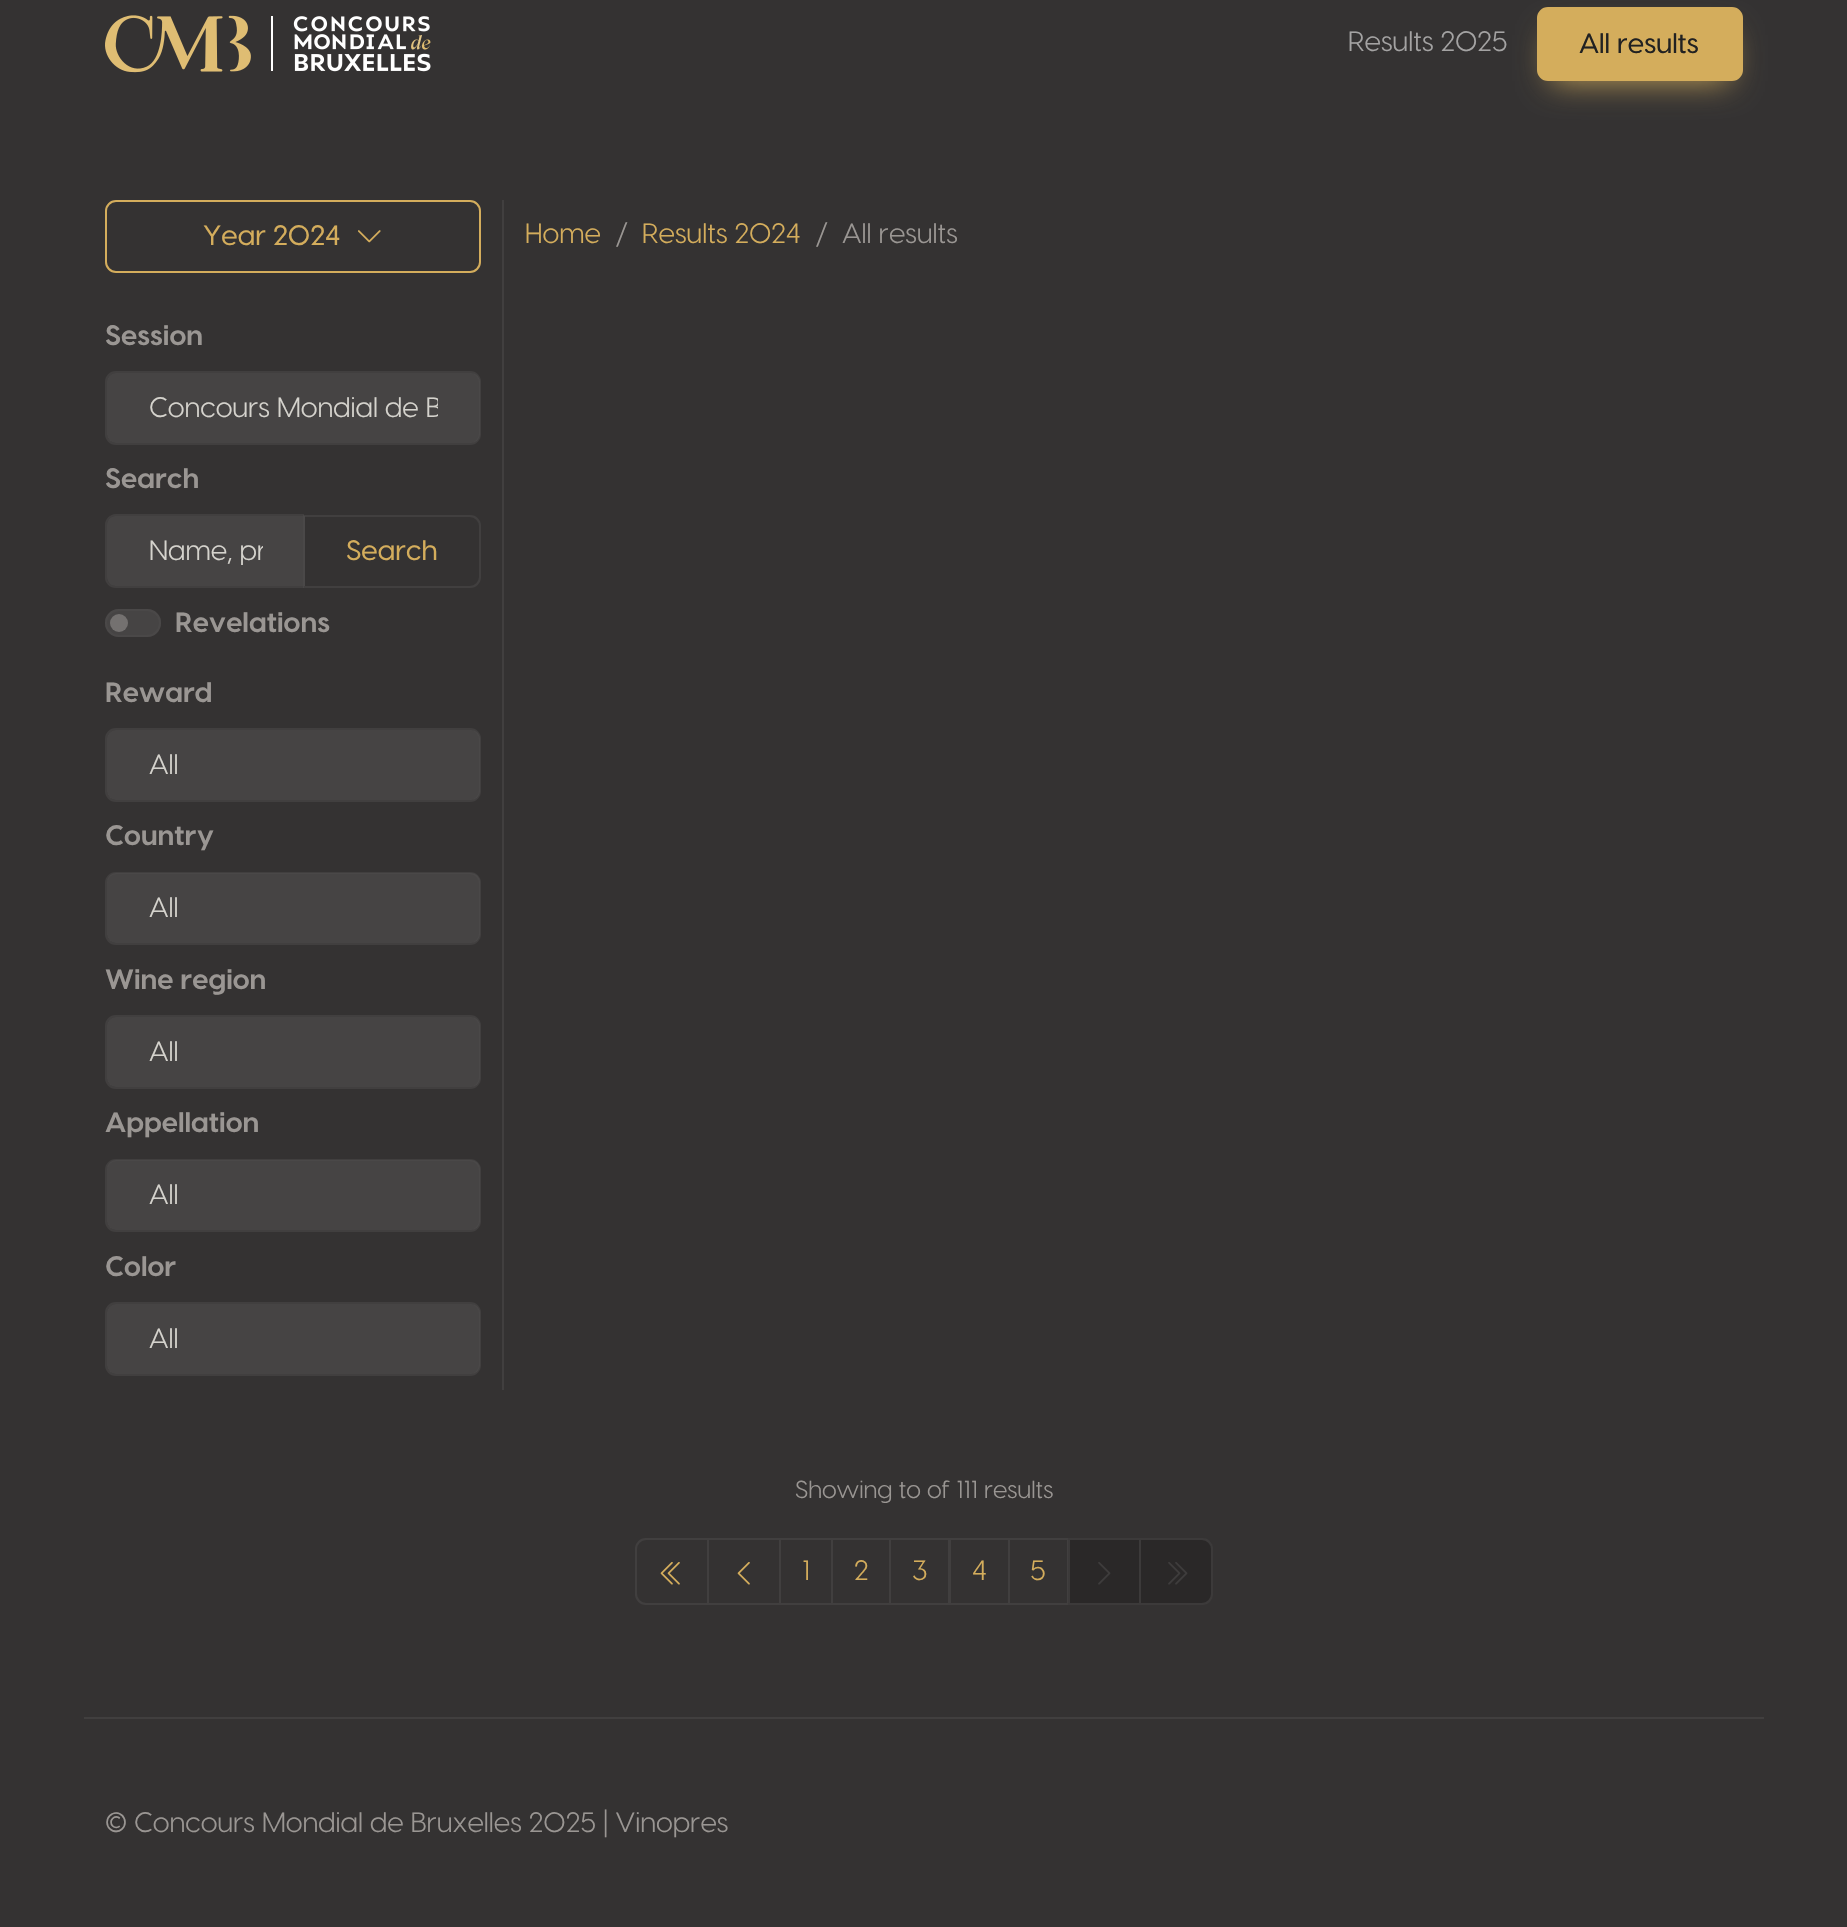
#include "include/core/SkBlurTypes.h"
#include "include/core/SkCanvas.h"
#include "include/core/SkData.h"
#include "include/core/SkFont.h"
#include "include/core/SkFontMgr.h"
#include "include/core/SkImage.h"
#include "include/core/SkMaskFilter.h"
#include "include/core/SkPaint.h"
#include "include/core/SkPathBuilder.h"
#include "include/core/SkTextBlob.h"
#include "include/effects/SkDashPathEffect.h"
#include "include/effects/SkGradientShader.h"
#include "include/utils/SkParsePath.h"

extern sk_sp<SkFontMgr> fontMgr;

void draw(SkCanvas* canvas) {
    SkPaint p;
    p.setAntiAlias(true);
    auto font = [&](const char* family, int weight, float size, bool italic = false) {
        SkFontStyle style(weight, SkFontStyle::kNormal_Width,
            italic ? SkFontStyle::kItalic_Slant : SkFontStyle::kUpright_Slant);
        SkFont result(fontMgr->matchFamilyStyle(family, style), size);
        result.setSubpixel(true);
        return result;
    };
    auto drawPhoto = [&](const char* path, float l, float t, float r, float b) {
        auto image = SkImages::DeferredFromEncodedData(SkData::MakeFromFileName(path));
        canvas->drawImageRect(image, SkRect::MakeLTRB(l, t, r, b), SkSamplingOptions());
    };
    canvas->clear(0xFF343232);
    drawPhoto("media/1.png", 105, 15, 431, 73);
    auto font1 = font("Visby", 400, 28);
    p.setColor(0xFFA4A3A3);
    canvas->drawString("Results 2025", 1348, 51, font1, p);
    p.setColor(0xE6D4AD5C);
    p.setMaskFilter(SkMaskFilter::MakeBlur(kNormal_SkBlurStyle, 16));
    canvas->drawRect(SkRect::MakeLTRB(1551, 35, 1729, 81), p);
    p.setMaskFilter(nullptr);
    p.setColor(0xFFD4AD5C);
    canvas->drawRoundRect(SkRect::MakeLTRB(1538, 8, 1742, 80), 10, 10, p);
    p.setStyle(SkPaint::kStroke_Style);
    p.setStrokeWidth(2);
    canvas->drawRoundRect(SkRect::MakeLTRB(1538, 8, 1742, 80), 10, 10, p);
    auto font2 = font("Visby", 500, 28);
    p.setStyle(SkPaint::kFill_Style);
    p.setColor(0xFF212121);
    canvas->drawString("All results", 1579, 53, font2, p);
    p.setColor(0xFF413F3F);
    canvas->drawRect(SkRect::MakeLTRB(502, 200, 504, 1390), p);
    p.setStyle(SkPaint::kStroke_Style);
    p.setColor(0xFFD4AD5C);
    canvas->drawRoundRect(SkRect::MakeLTRB(106, 201, 480, 272), 10, 10, p);
    p.setStyle(SkPaint::kFill_Style);
    canvas->drawString("Year 2024", 203, 245, font2, p);
    drawPhoto("media/2.png", 358, 230, 381, 243);
    auto font3 = font("Visby", 700, 28);
    p.setColor(0xFF9A9693);
    canvas->drawString("Session", 105, 345, font3, p);
    p.setColor(0xFF464444);
    canvas->drawRoundRect(SkRect::MakeLTRB(107, 373, 480, 443), 9, 9, p);
    p.setStyle(SkPaint::kStroke_Style);
    p.setColor(0x804E4C4B);
    canvas->drawRoundRect(SkRect::MakeLTRB(106, 372, 480, 444), 10, 10, p);
    canvas->save();
    canvas->clipRect(SkRect::MakeLTRB(149, 387, 438, 429));
    p.setStyle(SkPaint::kFill_Style);
    p.setColor(0xFFD5D3CD);
    canvas->drawString("Concours Mondial de B", 149, 417, font1, p);
    canvas->restore();
    p.setColor(0xFF9A9693);
    canvas->drawString("Search", 105, 488, font3, p);
    p.setColor(0xFF464444);
    canvas->drawPath(SkPathBuilder().moveTo(116, 516).lineTo(305, 516).lineTo(305, 586).lineTo(116, 586).cubicTo(111, 586, 107, 582, 107, 577).lineTo(107, 525).cubicTo(107, 520, 111, 516, 116, 516).close().detach(), p);
    p.setColor(0x804E4C4B);
    canvas->drawPath(SkPathBuilder(SkPathFillType::kEvenOdd).moveTo(116, 514).lineTo(304, 514).lineTo(304, 588).lineTo(116, 588).cubicTo(110, 588, 105, 583, 105, 578).lineTo(105, 525).cubicTo(105, 519, 110, 514, 116, 514).close().moveTo(116, 516).lineTo(304, 516).lineTo(304, 586).lineTo(116, 586).cubicTo(111, 586, 107, 582, 107, 578).lineTo(107, 525).cubicTo(107, 520, 111, 516, 116, 516).close().detach(), p);
    canvas->save();
    canvas->clipRect(SkRect::MakeLTRB(149, 537, 263, 565));
    p.setColor(0xFFD5D3CD);
    canvas->drawString("Name, pr", 149, 560, font1, p);
    canvas->restore();
    p.setStyle(SkPaint::kStroke_Style);
    p.setColor(0x804E4C4B);
    canvas->drawPath(SkPathBuilder().moveTo(304, 516).lineTo(470, 516).cubicTo(475.5f, 516, 480, 520.5f, 480, 526).lineTo(480, 577).cubicTo(480, 582.5f, 475.5f, 587, 470, 587).lineTo(304, 587).close().detach(), p);
    p.setStyle(SkPaint::kFill_Style);
    p.setColor(0xFFD4AD5C);
    canvas->drawString("Search", 346, 560, font2, p);
    p.setColor(0xFF464444);
    canvas->drawRoundRect(SkRect::MakeLTRB(105, 609, 161, 637), 14, 14, p);
    p.setColor(0xFF747170);
    canvas->drawCircle(119, 623, 9, p);
    p.setStyle(SkPaint::kStroke_Style);
    p.setColor(0x804E4C4B);
    canvas->drawRoundRect(SkRect::MakeLTRB(106, 610, 160, 636), 13, 13, p);
    p.setStyle(SkPaint::kFill_Style);
    p.setColor(0xFF9A9693);
    canvas->drawString("Revelations", 175, 632, font3, p);
    canvas->drawString("Reward", 105, 702, font3, p);
    p.setColor(0xFF464444);
    canvas->drawRoundRect(SkRect::MakeLTRB(107, 730, 480, 800), 9, 9, p);
    p.setStyle(SkPaint::kStroke_Style);
    p.setColor(0x804E4C4B);
    canvas->drawRoundRect(SkRect::MakeLTRB(106, 729, 480, 801), 10, 10, p);
    p.setStyle(SkPaint::kFill_Style);
    p.setColor(0xFFD5D3CD);
    canvas->drawString("All", 149, 774, font1, p);
    p.setColor(0xFF9A9693);
    canvas->drawString("Country", 105, 845, font3, p);
    p.setColor(0xFF464444);
    canvas->drawRoundRect(SkRect::MakeLTRB(107, 873, 480, 943), 9, 9, p);
    p.setStyle(SkPaint::kStroke_Style);
    p.setColor(0x804E4C4B);
    canvas->drawRoundRect(SkRect::MakeLTRB(106, 873, 480, 944), 10, 10, p);
    p.setStyle(SkPaint::kFill_Style);
    p.setColor(0xFFD5D3CD);
    canvas->drawString("All", 149, 917, font1, p);
    p.setColor(0xFF9A9693);
    canvas->drawString("Wine region", 105, 989, font3, p);
    p.setColor(0xFF464444);
    canvas->drawRoundRect(SkRect::MakeLTRB(107, 1017, 480, 1087), 9, 9, p);
    p.setStyle(SkPaint::kStroke_Style);
    p.setColor(0x804E4C4B);
    canvas->drawRoundRect(SkRect::MakeLTRB(106, 1016, 480, 1088), 10, 10, p);
    p.setStyle(SkPaint::kFill_Style);
    p.setColor(0xFFD5D3CD);
    canvas->drawString("All", 149, 1061, font1, p);
    p.setColor(0xFF9A9693);
    canvas->drawString("Appellation", 105, 1132, font3, p);
    p.setColor(0xFF464444);
    canvas->drawRoundRect(SkRect::MakeLTRB(107, 1160, 480, 1230), 9, 9, p);
    p.setStyle(SkPaint::kStroke_Style);
    p.setColor(0x804E4C4B);
    canvas->drawRoundRect(SkRect::MakeLTRB(106, 1160, 480, 1231), 10, 10, p);
    p.setStyle(SkPaint::kFill_Style);
    p.setColor(0xFFD5D3CD);
    canvas->drawString("All", 149, 1204, font1, p);
    p.setColor(0xFF9A9693);
    canvas->drawString("Color", 105, 1276, font3, p);
    p.setColor(0xFF464444);
    canvas->drawRoundRect(SkRect::MakeLTRB(107, 1304, 480, 1374), 9, 9, p);
    p.setStyle(SkPaint::kStroke_Style);
    p.setColor(0x804E4C4B);
    canvas->drawRoundRect(SkRect::MakeLTRB(106, 1303, 480, 1375), 10, 10, p);
    p.setStyle(SkPaint::kFill_Style);
    p.setColor(0xFFD5D3CD);
    canvas->drawString("All", 149, 1348, font1, p);
    p.setColor(0xFFD4AD5C);
    canvas->drawString("Home", 525, 243, font1, p);
    p.setColor(0xFF9A9693);
    canvas->drawString("/", 615, 243, font1, p);
    p.setColor(0xFFD4AD5C);
    canvas->drawString("Results 2024", 642, 243, font1, p);
    p.setColor(0xFF9A9693);
    canvas->drawString("/", 815, 243, font1, p);
    canvas->drawString("All results", 842, 243, font1, p);
    auto font4 = font("Visby", 400, 24.5f);
    canvas->drawString("Showing to of 111 results", 795, 1498, font4, p);
    p.setStyle(SkPaint::kStroke_Style);
    p.setColor(0xFF413F3F);
    canvas->drawPath(SkPathBuilder().moveTo(646, 1539).lineTo(708, 1539).lineTo(708, 1604).lineTo(646, 1604).cubicTo(640.5f, 1604, 636, 1599.5f, 636, 1594).lineTo(636, 1549).cubicTo(636, 1543.5f, 640.5f, 1539, 646, 1539).close().detach(), p);
    drawPhoto("media/3.png", 660, 1562, 680, 1585);
    canvas->drawRect(SkRect::MakeLTRB(708, 1539, 780, 1604), p);
    drawPhoto("media/4.png", 737, 1562, 750, 1585);
    canvas->drawRect(SkRect::MakeLTRB(780, 1539, 832, 1604), p);
    p.setStyle(SkPaint::kFill_Style);
    p.setColor(0xFFD4AD5C);
    canvas->drawString("1", 802, 1580, font1, p);
    p.setStyle(SkPaint::kStroke_Style);
    p.setColor(0xFF413F3F);
    canvas->drawRect(SkRect::MakeLTRB(832, 1539, 890, 1604), p);
    p.setStyle(SkPaint::kFill_Style);
    p.setColor(0xFFD4AD5C);
    canvas->drawString("2", 854, 1580, font1, p);
    p.setStyle(SkPaint::kStroke_Style);
    p.setColor(0xFF413F3F);
    canvas->drawRect(SkRect::MakeLTRB(890, 1539, 949, 1604), p);
    p.setStyle(SkPaint::kFill_Style);
    p.setColor(0xFFD4AD5C);
    canvas->drawString("3", 912, 1580, font1, p);
    p.setStyle(SkPaint::kStroke_Style);
    p.setColor(0xFF413F3F);
    canvas->drawRect(SkRect::MakeLTRB(950, 1539, 1009, 1604), p);
    p.setStyle(SkPaint::kFill_Style);
    p.setColor(0xFFD4AD5C);
    canvas->drawString("4", 972, 1580, font1, p);
    p.setStyle(SkPaint::kStroke_Style);
    p.setColor(0xFF413F3F);
    canvas->drawRect(SkRect::MakeLTRB(1009, 1539, 1068, 1604), p);
    p.setStyle(SkPaint::kFill_Style);
    p.setColor(0xFFD4AD5C);
    canvas->drawString("5", 1030, 1580, font1, p);
    p.setColor(0xFF2A2828);
    canvas->drawRect(SkRect::MakeLTRB(1069, 1539, 1140, 1604), p);
    p.setStyle(SkPaint::kStroke_Style);
    p.setColor(0xFF3C3A3A);
    canvas->drawRect(SkRect::MakeLTRB(1069, 1539, 1140, 1604), p);
    drawPhoto("media/5.png", 1098, 1562, 1111, 1585);
    p.setStyle(SkPaint::kFill_Style);
    p.setColor(0xFF2A2828);
    canvas->drawPath(SkPathBuilder().moveTo(1139, 1538).lineTo(1202, 1538).cubicTo(1208, 1538, 1213, 1543, 1213, 1549).lineTo(1213, 1594).cubicTo(1213, 1600, 1208, 1605, 1202, 1605).lineTo(1139, 1605).close().detach(), p);
    p.setStyle(SkPaint::kStroke_Style);
    p.setColor(0x804E4C4B);
    canvas->drawPath(SkPathBuilder().moveTo(1140, 1539).lineTo(1202, 1539).cubicTo(1207.5f, 1539, 1212, 1543.5f, 1212, 1549).lineTo(1212, 1594).cubicTo(1212, 1599.5f, 1207.5f, 1604, 1202, 1604).lineTo(1140, 1604).close().detach(), p);
    drawPhoto("media/6.png", 1168, 1562, 1188, 1585);
    p.setStyle(SkPaint::kFill_Style);
    p.setColor(0xFF413F3F);
    canvas->drawRect(SkRect::MakeLTRB(84, 1717, 1764, 1719), p);
    p.setColor(0xFF9A9693);
    canvas->drawString("© Concours Mondial de Bruxelles 2025 | Vinopres", 105, 1832, font1, p);
}
